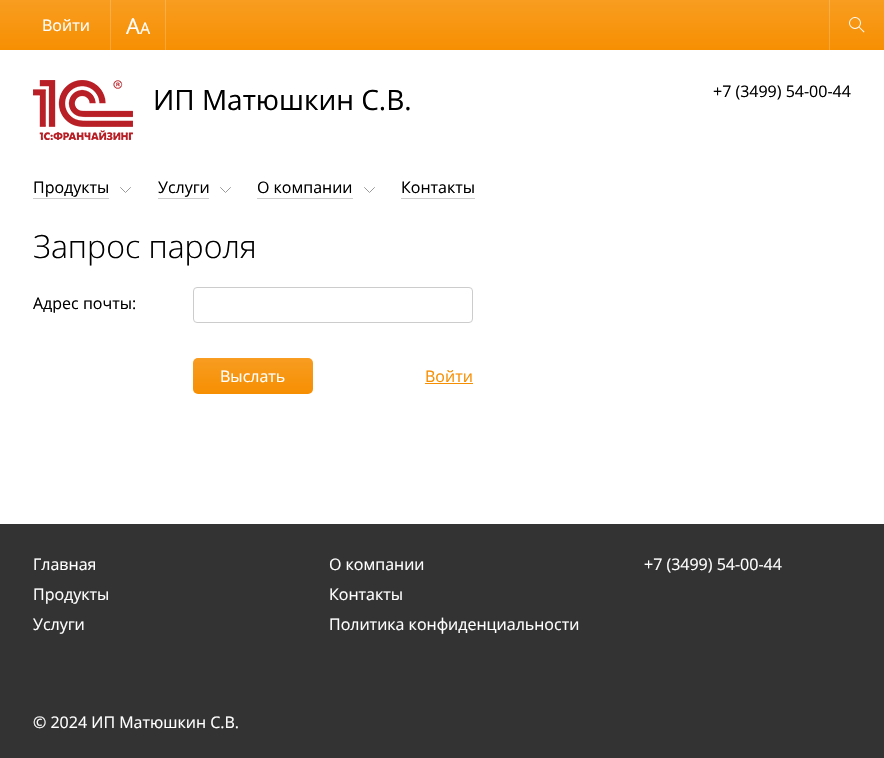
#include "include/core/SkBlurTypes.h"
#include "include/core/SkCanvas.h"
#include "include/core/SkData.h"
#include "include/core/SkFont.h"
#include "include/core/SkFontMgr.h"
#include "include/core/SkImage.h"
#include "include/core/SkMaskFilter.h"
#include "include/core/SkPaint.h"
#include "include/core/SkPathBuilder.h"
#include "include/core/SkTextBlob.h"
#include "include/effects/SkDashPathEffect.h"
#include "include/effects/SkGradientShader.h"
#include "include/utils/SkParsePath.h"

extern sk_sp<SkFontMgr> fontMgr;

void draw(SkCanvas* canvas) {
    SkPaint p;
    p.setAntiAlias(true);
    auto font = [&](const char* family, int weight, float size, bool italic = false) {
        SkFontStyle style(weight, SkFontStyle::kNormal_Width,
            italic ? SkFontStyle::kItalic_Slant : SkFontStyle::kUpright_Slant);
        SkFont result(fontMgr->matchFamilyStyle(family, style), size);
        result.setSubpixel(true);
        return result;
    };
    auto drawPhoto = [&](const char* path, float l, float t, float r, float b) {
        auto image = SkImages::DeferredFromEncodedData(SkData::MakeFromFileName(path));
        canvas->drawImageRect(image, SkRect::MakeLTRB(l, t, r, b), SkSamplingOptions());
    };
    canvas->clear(0xFFFFFFFF);
    {
        const SkColor colors[] = {0xFFF89D20, 0xFFF78F02};
        const float stops[] = {0, 1};
        const SkPoint ends[] = {{442, 0}, {442, 50}};
        p.setShader(SkGradientShader::MakeLinear(ends, colors, stops, 2, SkTileMode::kClamp));
        p.setAlpha(255);
    }
    canvas->drawRect(SkRect::MakeLTRB(0, 0, 884, 50), p);
    {
        const SkColor colors[] = {0xFFF9B14D, 0xFFF9A535};
        const float stops[] = {0, 1};
        const SkPoint ends[] = {{442, 0}, {442, 50}};
        p.setShader(SkGradientShader::MakeLinear(ends, colors, stops, 2, SkTileMode::kClamp));
        p.setAlpha(255);
    }
    canvas->drawRect(SkRect::MakeLTRB(165, 0, 166, 50), p);
    canvas->drawRect(SkRect::MakeLTRB(110, 0, 111, 50), p);
    canvas->drawRect(SkRect::MakeLTRB(829, 0, 830, 50), p);
    drawPhoto("media/1.png", 849, 17, 865, 33);
    auto font1 = font("Open Sans", 400, 16);
    p.setShader(nullptr);
    p.setColor(0xFFFFFFFF);
    canvas->drawString("Войти", 42, 31, font1, p);
    auto font2 = font("Open Sans", 400, 22);
    canvas->drawString("A", 126, 34, font2, p);
    canvas->drawString("A", 140, 34, font1, p);
    p.setColor(0xFF000000);
    canvas->drawString("Продукты", 33, 193, font1, p);
    p.setColor(0xFFCCCCCC);
    canvas->drawRect(SkRect::MakeLTRB(33, 198, 109, 199), p);
    drawPhoto("media/2.png", 120, 187, 131, 193);
    p.setColor(0xFF000000);
    canvas->drawString("Услуги", 158, 193, font1, p);
    p.setColor(0xFFCCCCCC);
    canvas->drawRect(SkRect::MakeLTRB(158, 198, 209, 199), p);
    drawPhoto("media/2.png", 220, 187, 231, 193);
    p.setColor(0xFF000000);
    canvas->drawString("О компании", 257, 193, font1, p);
    p.setColor(0xFFCCCCCC);
    canvas->drawRect(SkRect::MakeLTRB(257, 198, 353, 199), p);
    drawPhoto("media/2.png", 364, 187, 375, 193);
    p.setColor(0xFF000000);
    canvas->drawString("Контакты", 401, 193, font1, p);
    p.setColor(0xFFCCCCCC);
    canvas->drawRect(SkRect::MakeLTRB(401, 198, 475, 199), p);
    drawPhoto("media/3.png", 33, 80, 133, 140);
    auto font3 = font("Open Sans", 400, 28);
    p.setColor(0xFF000000);
    canvas->drawString("ИП Матюшкин С.В.", 153, 110, font3, p);
    canvas->drawString("+7 (3499) 54-00-44", 713, 97, font1, p);
    auto font4 = font("Open Sans", 300, 32);
    canvas->drawString("Запрос пароля", 33, 258, font4, p);
    canvas->drawString("Адрес почты:", 33, 309, font1, p);
    p.setStyle(SkPaint::kStroke_Style);
    p.setStrokeWidth(1);
    p.setColor(0xFFCCCCCC);
    canvas->drawRoundRect(SkRect::MakeLTRB(193.5f, 287.5f, 472.5f, 322.5f), 3.5f, 3.5f, p);
    p.setStyle(SkPaint::kFill_Style);
    p.setColor(0xFFF78F02);
    canvas->drawRoundRect(SkRect::MakeLTRB(193, 358, 313, 394), 5, 5, p);
    {
        const SkColor colors[] = {0x1FFFFFFF, 0x00FFFFFF};
        const float stops[] = {0, 1};
        const SkPoint ends[] = {{253, 358}, {253, 394}};
        p.setShader(SkGradientShader::MakeLinear(ends, colors, stops, 2, SkTileMode::kClamp));
        p.setAlpha(255);
    }
    canvas->drawRoundRect(SkRect::MakeLTRB(193, 358, 313, 394), 5, 5, p);
    p.setShader(nullptr);
    p.setColor(0xFFFFFFFF);
    canvas->drawString("Выслать", 220, 382, font1, p);
    p.setColor(0xFFF78F02);
    canvas->drawString("Войти", 425, 382, font1, p);
    canvas->drawRect(SkRect::MakeLTRB(425, 383, 473, 384), p);
    p.setColor(0xFF333333);
    canvas->drawRect(SkRect::MakeLTRB(0, 524, 884, 758), p);
    p.setColor(0xFFFFFFFF);
    {
        const struct { const char* s; float x, y; } items[] = {
            {"Главная", 33, 570},
            {"О компании", 329, 570},
            {"Продукты", 33, 600},
            {"Контакты", 329, 600},
            {"Услуги", 33, 630},
            {"Политика конфиденциальности", 329, 630},
            {"+7 (3499) 54-00-44", 644, 570},
            {"© 2024 ИП Матюшкин С.В.", 33, 728},
        };
        for (auto [s, x, y] : items) {
            canvas->drawString(s, x, y, font1, p);
        }
    }
}
